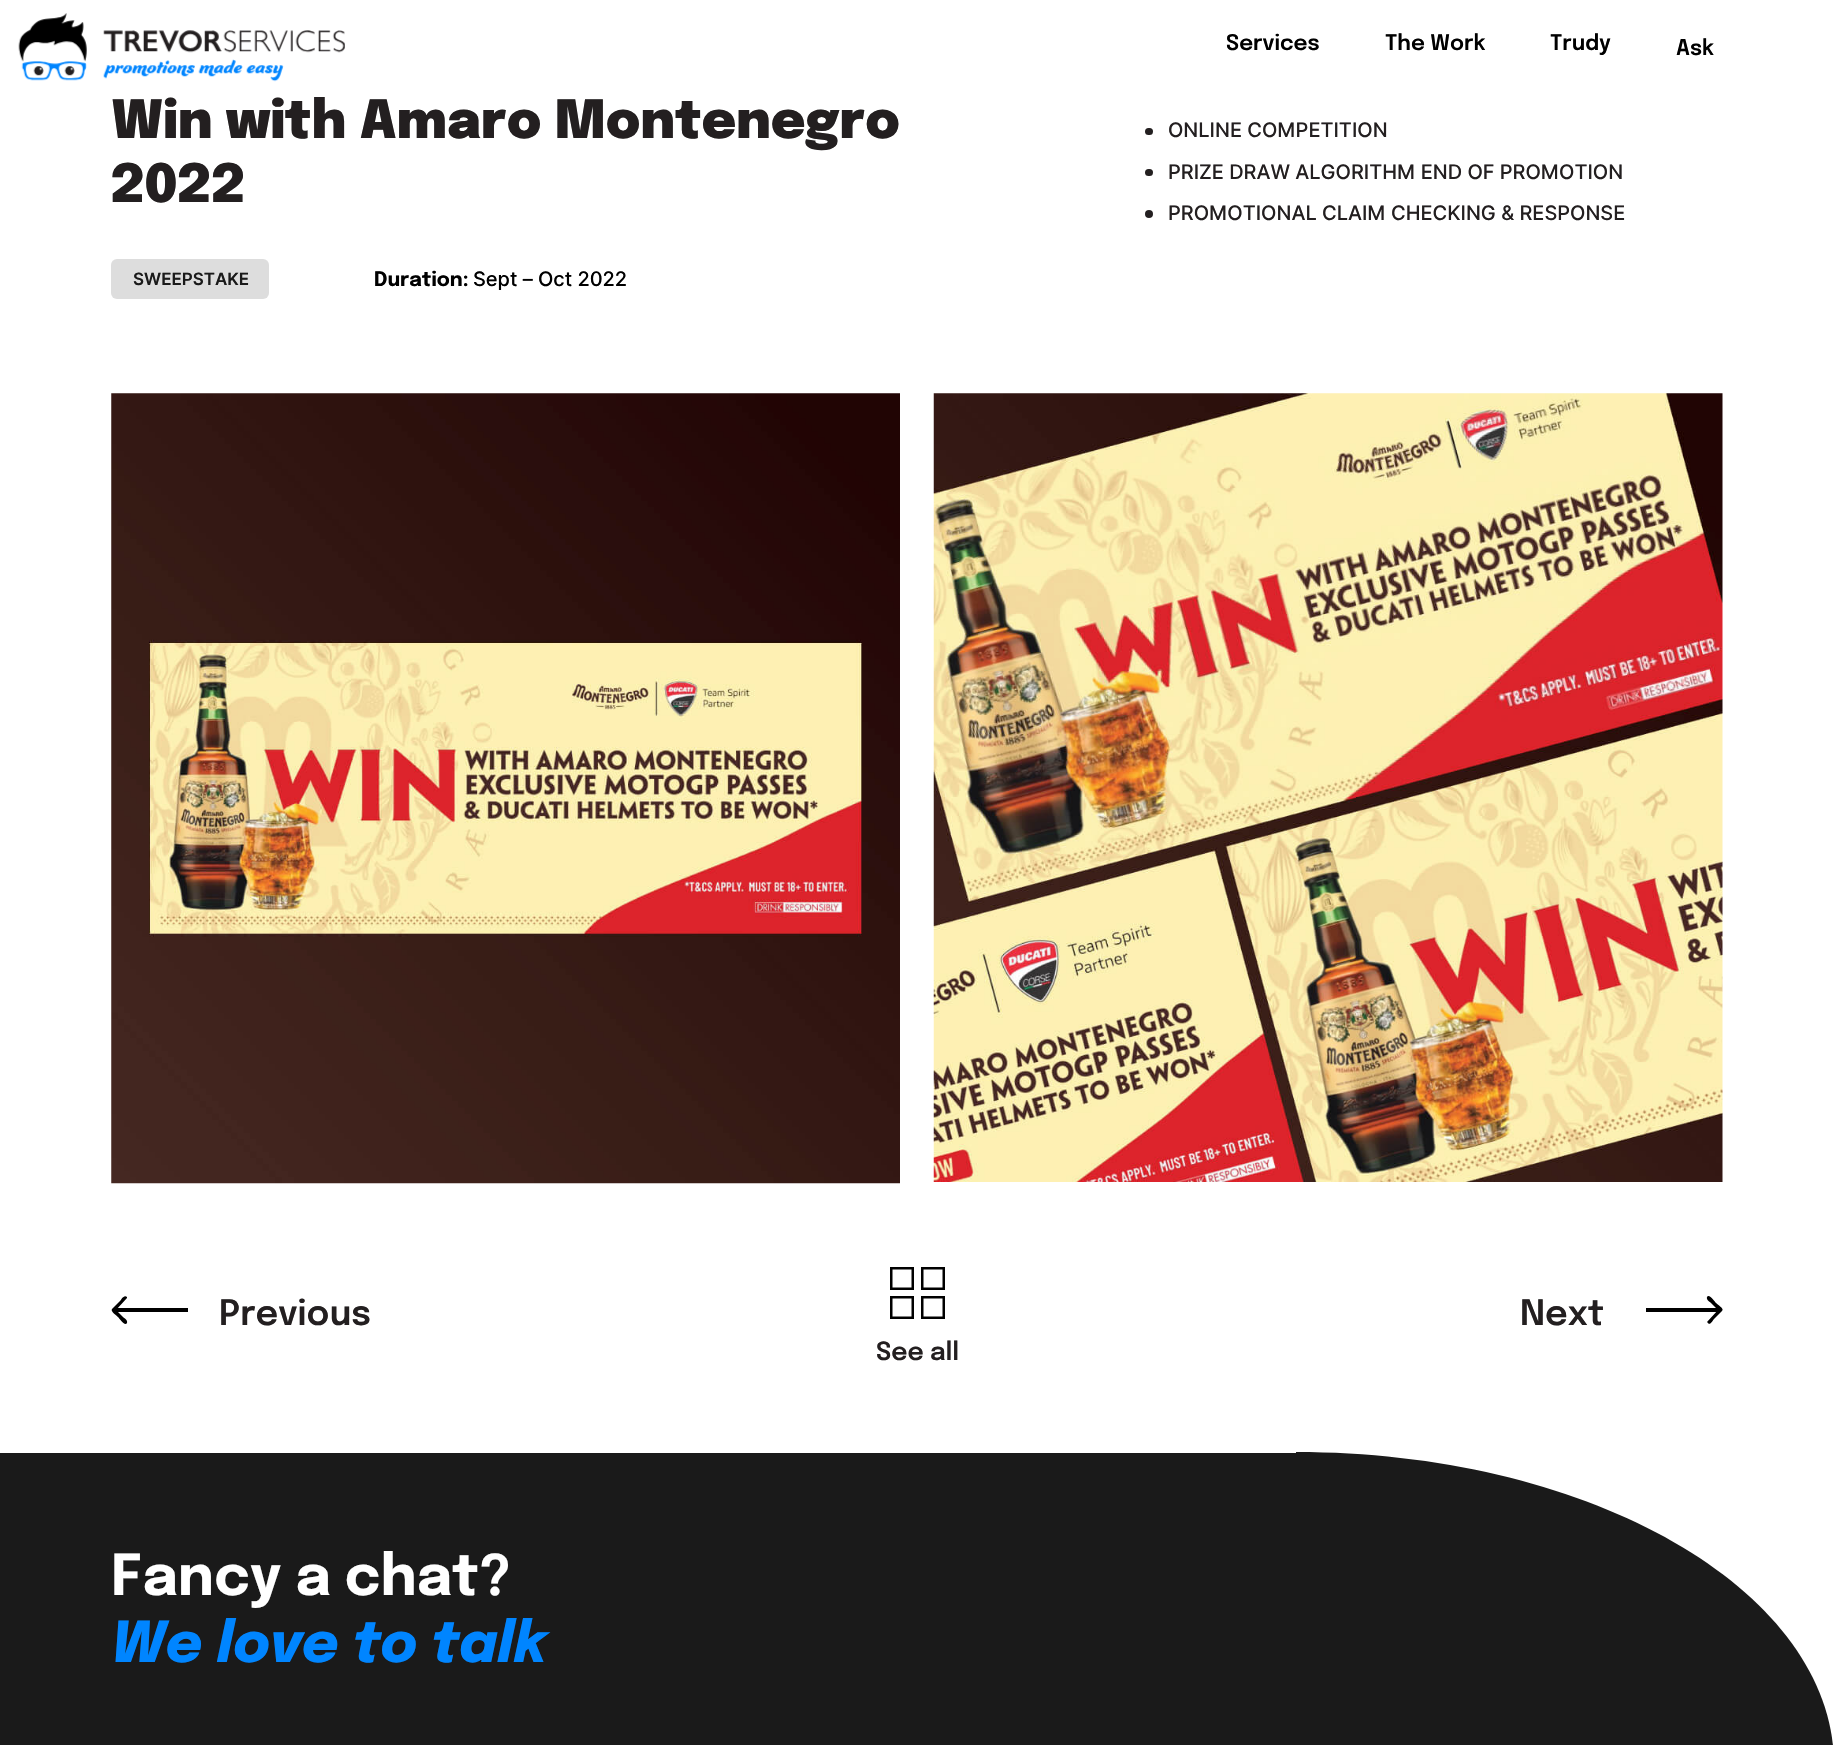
#include "include/core/SkBlurTypes.h"
#include "include/core/SkCanvas.h"
#include "include/core/SkData.h"
#include "include/core/SkFont.h"
#include "include/core/SkFontMgr.h"
#include "include/core/SkImage.h"
#include "include/core/SkMaskFilter.h"
#include "include/core/SkPaint.h"
#include "include/core/SkPathBuilder.h"
#include "include/core/SkTextBlob.h"
#include "include/effects/SkDashPathEffect.h"
#include "include/effects/SkGradientShader.h"
#include "include/utils/SkParsePath.h"

extern sk_sp<SkFontMgr> fontMgr;

void draw(SkCanvas* canvas) {
    SkPaint p;
    p.setAntiAlias(true);
    auto font = [&](const char* family, int weight, float size, bool italic = false) {
        SkFontStyle style(weight, SkFontStyle::kNormal_Width,
            italic ? SkFontStyle::kItalic_Slant : SkFontStyle::kUpright_Slant);
        SkFont result(fontMgr->matchFamilyStyle(family, style), size);
        result.setSubpixel(true);
        return result;
    };
    auto drawPhoto = [&](const char* path, float l, float t, float r, float b) {
        auto image = SkImages::DeferredFromEncodedData(SkData::MakeFromFileName(path));
        canvas->drawImageRect(image, SkRect::MakeLTRB(l, t, r, b), SkSamplingOptions());
    };
    canvas->clear(0xFFFFFFFF);
    drawPhoto("media/1.png", 18, 13, 345, 82);
    auto font1 = font("Epilogue", 600, 21.5f);
    p.setColor(0xFF000000);
    {
        const struct { const char* s; float x, y; } items[] = {
            {"Services", 1226, 50},
            {"The Work", 1385, 50},
            {"Trudy", 1550, 50},
            {"Ask", 1676, 55},
        };
        for (auto [s, x, y] : items) {
            canvas->drawString(s, x, y, font1, p);
        }
    }
    auto font2 = font("Epilogue", 900, 52.5f);
    p.setColor(0xFF231F20);
    canvas->drawString("Win with Amaro Montenegro", 111, 138, font2, p);
    canvas->drawString("2022", 111, 202, font2, p);
    p.setColor(0xFFDDDDDD);
    canvas->drawRoundRect(SkRect::MakeLTRB(111, 259, 269, 299), 6, 6, p);
    auto font3 = font("Inter", 600, 17);
    p.setColor(0xFF1A1A1A);
    canvas->drawString("SWEEPSTAKE", 133, 285, font3, p);
    auto font4 = font("Epilogue", 700, 20);
    p.setColor(0xFF000000);
    canvas->drawString("Duration:", 374, 286, font4, p);
    auto font5 = font("Inter", 500, 20);
    canvas->drawString("Sept – Oct 2022", 473, 286, font5, p);
    p.setColor(0xFF231F20);
    canvas->drawRoundRect(SkRect::MakeLTRB(1145, 128, 1153, 135), 3.5f, 3.5f, p);
    canvas->drawString("ONLINE COMPETITION", 1168, 137, font5, p);
    canvas->drawRoundRect(SkRect::MakeLTRB(1145, 169, 1153, 176), 3.5f, 3.5f, p);
    canvas->drawString("PRIZE DRAW ALGORITHM END OF PROMOTION", 1168, 179, font5, p);
    canvas->drawCircle(1149, 214, 4, p);
    canvas->drawString("PROMOTIONAL CLAIM CHECKING & RESPONSE", 1168, 220, font5, p);
    drawPhoto("media/2.png", 111, 393, 900, 1184);
    drawPhoto("media/3.png", 933, 393, 1723, 1182);
    p.setColor(0xFF000000);
    canvas->drawPath(SkPathBuilder().moveTo(112, 1309).cubicTo(110, 1311, 117, 1316, 118, 1317).cubicTo(119, 1318, 125, 1327, 127, 1323).cubicTo(128, 1320, 124, 1318, 123, 1317).lineTo(116, 1310).lineTo(127, 1298).lineTo(127, 1297).cubicTo(124, 1294, 121, 1300, 120, 1301).close().moveTo(188, 1308).lineTo(113, 1308).lineTo(113, 1312).lineTo(188, 1312).close().detach(), p);
    auto font6 = font("Epilogue", 600, 35);
    p.setColor(0xFF231F20);
    canvas->drawString("Previous", 219, 1325, font6, p);
    canvas->drawString("Next", 1520, 1325, font6, p);
    p.setColor(0xFF000000);
    canvas->drawPath(SkPathBuilder().moveTo(1722, 1311).cubicTo(1725, 1309, 1717, 1304, 1716, 1303).cubicTo(1715, 1302, 1709, 1293, 1707, 1297).cubicTo(1706, 1300, 1710, 1302, 1711, 1303).lineTo(1718, 1310).lineTo(1707, 1322).lineTo(1708, 1323).cubicTo(1710, 1326, 1713, 1320, 1714, 1319).close().moveTo(1646, 1312).lineTo(1721, 1312).lineTo(1721, 1308).lineTo(1646, 1308).close().detach(), p);
    p.setStyle(SkPaint::kStroke_Style);
    p.setStrokeWidth(2.5f);
    canvas->drawRect(SkRect::MakeLTRB(891.25f, 1268.25f, 912.75f, 1288.75f), p);
    canvas->drawRect(SkRect::MakeLTRB(922.25f, 1268.25f, 943.75f, 1288.75f), p);
    canvas->drawRect(SkRect::MakeLTRB(891.25f, 1297.25f, 912.75f, 1317.75f), p);
    canvas->drawRect(SkRect::MakeLTRB(922.25f, 1297.25f, 943.75f, 1317.75f), p);
    auto font7 = font("Epilogue", 600, 25);
    p.setStyle(SkPaint::kFill_Style);
    p.setColor(0xFF231F20);
    canvas->drawString("See all", 876, 1360, font7, p);
    p.setColor(0xFF1A1A1A);
    canvas->drawRect(SkRect::MakeLTRB(0, 1453, 1296, 1745), p);
    auto font8 = font("Epilogue", 700, 56.25f);
    p.setColor(0xFFFFFFFF);
    canvas->drawString("Fancy a chat?", 111, 1595, font8, p);
    auto font9 = font("Epilogue", 800, 56.25f, true);
    p.setColor(0xFF0085FF);
    canvas->drawString("We love to talk", 111, 1662, font9, p);
    p.setColor(0xFF1A1A1A);
    canvas->drawPath(SkPathBuilder().moveTo(1296, 1452).cubicTo(1593, 1452, 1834, 1592, 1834, 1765).lineTo(1296, 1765).close().detach(), p);
}
